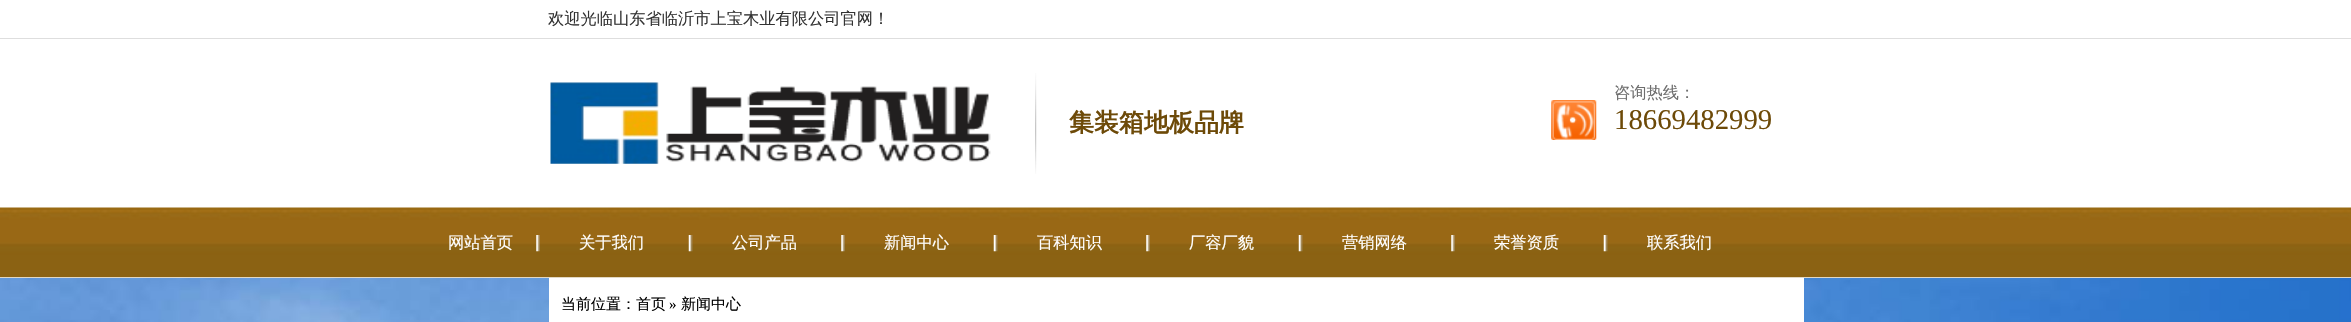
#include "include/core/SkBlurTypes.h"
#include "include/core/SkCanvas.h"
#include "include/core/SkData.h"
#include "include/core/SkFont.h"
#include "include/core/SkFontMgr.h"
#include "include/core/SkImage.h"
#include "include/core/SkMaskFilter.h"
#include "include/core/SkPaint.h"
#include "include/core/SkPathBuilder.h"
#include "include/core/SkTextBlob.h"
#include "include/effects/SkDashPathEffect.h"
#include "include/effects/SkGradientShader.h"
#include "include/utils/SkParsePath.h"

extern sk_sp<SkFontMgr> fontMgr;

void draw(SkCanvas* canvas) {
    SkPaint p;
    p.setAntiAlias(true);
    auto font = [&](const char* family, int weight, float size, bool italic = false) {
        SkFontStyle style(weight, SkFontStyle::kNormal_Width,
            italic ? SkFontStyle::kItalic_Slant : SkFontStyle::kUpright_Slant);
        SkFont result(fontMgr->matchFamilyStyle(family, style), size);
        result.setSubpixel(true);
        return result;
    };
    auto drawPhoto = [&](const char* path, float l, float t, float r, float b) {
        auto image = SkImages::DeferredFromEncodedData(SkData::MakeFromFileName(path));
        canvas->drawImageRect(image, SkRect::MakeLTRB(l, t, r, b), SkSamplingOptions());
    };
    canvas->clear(0xFFFFFFFF);
    drawPhoto("media/1.png", 0, 278, 2351, 322);
    p.setColor(0xFFDEDEDE);
    canvas->drawRect(SkRect::MakeLTRB(0, 38, 2351, 39), p);
    auto font1 = font("WenQuanYi Zen Hei", 500, 16.25f);
    p.setColor(0xFF333333);
    canvas->drawString("欢迎光临山东省临沂市上宝木业有限公司官网！", 548, 24, font1, p);
    drawPhoto("media/2.png", 1035, 73, 1037, 174);
    drawPhoto("media/3.png", 550, 82, 991, 164);
    auto font2 = font("WenQuanYi Zen Hei", 700, 25);
    p.setColor(0xFF6D4A08);
    canvas->drawString("集装箱地板品牌", 1069, 131, font2, p);
    drawPhoto("media/4.png", 1551, 100, 1597, 140);
    p.setColor(0xFF6E6E6E);
    canvas->drawString("咨询热线：", 1614, 98, font1, p);
    auto font3 = font("Liberation Serif", 400, 28.75f);
    p.setColor(0xFF6D4A08);
    canvas->drawString("18669482999", 1614, 129, font3, p);
    drawPhoto("media/5.png", 0, 207, 2351, 278);
    p.setColor(0xFFFFFFFF);
    canvas->drawString("网站首页", 448, 248, font1, p);
    drawPhoto("media/6.png", 536, 235, 540, 252);
    canvas->drawString("关于我们", 579, 248, font1, p);
    drawPhoto("media/7.png", 688, 235, 693, 252);
    canvas->drawString("公司产品", 732, 248, font1, p);
    drawPhoto("media/6.png", 841, 235, 845, 252);
    canvas->drawString("新闻中心", 884, 248, font1, p);
    drawPhoto("media/7.png", 993, 235, 998, 252);
    canvas->drawString("百科知识", 1037, 248, font1, p);
    drawPhoto("media/6.png", 1146, 235, 1150, 252);
    canvas->drawString("厂容厂貌", 1189, 248, font1, p);
    drawPhoto("media/7.png", 1298, 235, 1303, 252);
    canvas->drawString("营销网络", 1342, 248, font1, p);
    drawPhoto("media/6.png", 1451, 235, 1455, 252);
    canvas->drawString("荣誉资质", 1494, 248, font1, p);
    drawPhoto("media/7.png", 1603, 235, 1608, 252);
    canvas->drawString("联系我们", 1647, 248, font1, p);
    canvas->drawRect(SkRect::MakeLTRB(549, 278, 1804, 322), p);
    auto font4 = font("WenQuanYi Zen Hei", 500, 15);
    p.setColor(0xFF000000);
    canvas->drawString("当前位置：首页", 561, 309, font4, p);
    auto font5 = font("Liberation Serif", 400, 15);
    canvas->drawString("»", 669, 309, font5, p);
    canvas->drawString("新闻中心", 681, 309, font4, p);
}
